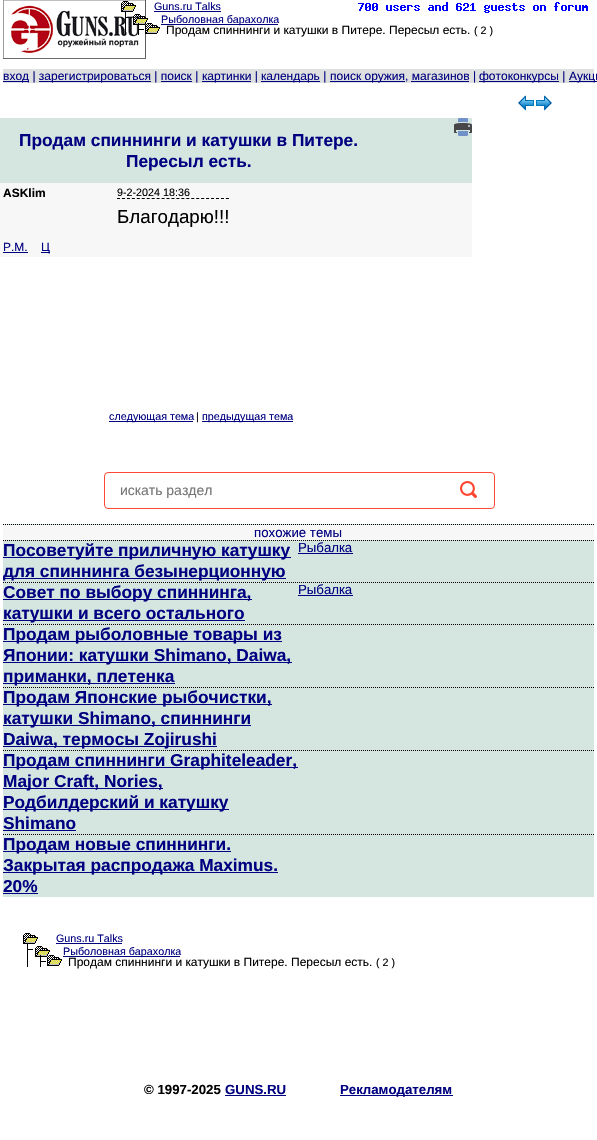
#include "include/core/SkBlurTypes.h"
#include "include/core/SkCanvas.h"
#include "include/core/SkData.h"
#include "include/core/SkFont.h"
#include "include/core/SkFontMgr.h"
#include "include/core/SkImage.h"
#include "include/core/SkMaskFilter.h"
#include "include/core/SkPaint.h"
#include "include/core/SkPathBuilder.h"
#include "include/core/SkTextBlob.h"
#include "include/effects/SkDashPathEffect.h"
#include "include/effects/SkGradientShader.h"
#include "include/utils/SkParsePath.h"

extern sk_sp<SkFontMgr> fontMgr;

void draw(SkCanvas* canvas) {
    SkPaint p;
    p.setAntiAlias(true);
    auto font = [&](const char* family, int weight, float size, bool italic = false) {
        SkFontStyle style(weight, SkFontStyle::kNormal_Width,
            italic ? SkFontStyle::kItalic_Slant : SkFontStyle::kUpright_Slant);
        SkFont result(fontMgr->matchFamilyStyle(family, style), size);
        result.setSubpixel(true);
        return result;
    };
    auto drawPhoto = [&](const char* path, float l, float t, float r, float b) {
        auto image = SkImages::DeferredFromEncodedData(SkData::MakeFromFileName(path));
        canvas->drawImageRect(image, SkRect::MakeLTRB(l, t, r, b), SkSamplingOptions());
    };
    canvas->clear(0xFFFFFFFF);
    drawPhoto("media/1.png", 3, 0, 146, 59);
    drawPhoto("media/2.png", 121, 1, 136, 12);
    auto font1 = font("Liberation Sans", 400, 10.75f);
    p.setColor(0xFF000080);
    canvas->drawString("Guns.ru Talks", 154, 10, font1, p);
    canvas->drawRect(SkRect::MakeLTRB(154, 11, 221, 12), p);
    drawPhoto("media/3.png", 125, 12, 131, 23);
    drawPhoto("media/4.png", 133, 14, 148, 25);
    canvas->drawRect(SkRect::MakeLTRB(161, 24, 278, 25), p);
    canvas->drawString("Рыболовная барахолка", 161, 23, font1, p);
    drawPhoto("media/5.png", 125, 23, 144, 35);
    drawPhoto("media/6.png", 145, 23, 160, 34);
    auto font2 = font("Liberation Sans", 400, 12);
    p.setColor(0xFF000000);
    canvas->drawString("Продам спиннинги и катушки в Питере. Пересыл есть.", 166, 34, font2, p);
    canvas->drawString("( 2 )", 474, 34, font1, p);
    drawPhoto("media/7.png", 358, 2, 588, 13);
    p.setColor(0xFFDEDFDF);
    canvas->drawRect(SkRect::MakeLTRB(3, 69, 594, 83), p);
    p.setColor(0xFF000080);
    canvas->drawRect(SkRect::MakeLTRB(3, 81, 29, 82), p);
    canvas->drawString("вход | за", 3, 80, font2, p);
    canvas->drawRect(SkRect::MakeLTRB(39, 81, 151, 82), p);
    canvas->drawString("регистрироваться | поиск |", 51, 80, font2, p);
    canvas->drawRect(SkRect::MakeLTRB(161, 81, 192, 82), p);
    canvas->drawRect(SkRect::MakeLTRB(202, 81, 251, 82), p);
    canvas->drawString("картинки |", 202, 80, font2, p);
    canvas->drawRect(SkRect::MakeLTRB(261, 81, 320, 82), p);
    canvas->drawString("календарь |", 261, 80, font2, p);
    canvas->drawRect(SkRect::MakeLTRB(330, 81, 405, 82), p);
    canvas->drawString("поиск оружия, магазинов |", 330, 80, font2, p);
    canvas->drawRect(SkRect::MakeLTRB(411, 81, 469, 82), p);
    canvas->drawRect(SkRect::MakeLTRB(479, 81, 559, 82), p);
    canvas->drawString("фотоконкурсы |", 479, 80, font2, p);
    canvas->drawRect(SkRect::MakeLTRB(569, 81, 597, 82), p);
    canvas->drawString("Аукци", 569, 80, font2, p);
    drawPhoto("media/8.png", 518, 95, 534, 111);
    drawPhoto("media/9.png", 536, 95, 552, 111);
    p.setColor(0xFFD5E6E1);
    canvas->drawRect(SkRect::MakeLTRB(0, 118, 472, 183), p);
    drawPhoto("media/10.png", 454, 118, 472, 136);
    auto font3 = font("Liberation Sans", 700, 17.3f);
    p.setColor(0xFF000080);
    canvas->drawString("Продам спиннинги и катушки в Питере.", 19, 146, font3, p);
    canvas->drawString("Пересыл есть.", 126, 167, font3, p);
    p.setColor(0xFFF7F7F7);
    canvas->drawRect(SkRect::MakeLTRB(0, 183, 472, 257), p);
    auto font4 = font("Liberation Sans", 700, 12);
    p.setColor(0xFF000000);
    canvas->drawString("ASKlim", 3, 197, font4, p);
    p.setColor(0xFF000080);
    canvas->drawString("P.M.", 3, 251, font2, p);
    canvas->drawRect(SkRect::MakeLTRB(3, 252, 28, 253), p);
    canvas->drawRect(SkRect::MakeLTRB(41, 252, 50, 253), p);
    canvas->drawString("Ц", 41, 251, font2, p);
    p.setColor(0xFF000000);
    canvas->drawString("9-2-2024 18:36", 117, 196, font1, p);
    p.setStyle(SkPaint::kStroke_Style);
    p.setStrokeWidth(1);
    p.setPathEffect(SkDashPathEffect::Make({{3, 1.95f}}, 0));
    canvas->drawPath(SkPathBuilder().moveTo(117, 198.5f).lineTo(229, 198.5f).detach(), p);
    p.setPathEffect(nullptr);
    auto font5 = font("Liberation Sans", 400, 18.75f);
    p.setStyle(SkPaint::kFill_Style);
    canvas->drawString("Благодарю!!!", 117, 223, font5, p);
    p.setColor(0xFF000080);
    canvas->drawRect(SkRect::MakeLTRB(109, 421, 193, 422), p);
    canvas->drawString("следующая тема", 109, 420, font1, p);
    p.setColor(0xFF000000);
    canvas->drawString("|", 196, 420, font1, p);
    p.setColor(0xFF000080);
    canvas->drawRect(SkRect::MakeLTRB(202, 421, 293, 422), p);
    canvas->drawString("предыдущая тема", 202, 420, font1, p);
    p.setStyle(SkPaint::kStroke_Style);
    p.setColor(0xFFFD4836);
    canvas->drawRoundRect(SkRect::MakeLTRB(104.5f, 472.5f, 494.5f, 508.5f), 3.5f, 3.5f, p);
    auto font6 = font("Liberation Sans", 400, 14);
    p.setStyle(SkPaint::kFill_Style);
    p.setColor(0xFF757575);
    canvas->drawString("искать раздел", 120, 495, font6, p);
    drawPhoto("media/11.png", 460, 481, 477, 498);
    p.setColor(0xFFD5E6E1);
    canvas->drawRect(SkRect::MakeLTRB(3, 524, 594, 897), p);
    p.setStyle(SkPaint::kStroke_Style);
    p.setColor(0xFF000000);
    p.setPathEffect(SkDashPathEffect::Make({{1, 1}}, 0));
    canvas->drawPath(SkPathBuilder().moveTo(3, 524.5f).lineTo(594, 524.5f).detach(), p);
    p.setPathEffect(nullptr);
    p.setStyle(SkPaint::kFill_Style);
    p.setColor(0xFFF7F7F7);
    canvas->drawRect(SkRect::MakeLTRB(3, 525, 594, 540), p);
    auto font7 = font("Liberation Sans", 400, 13.25f);
    p.setColor(0xFF000080);
    canvas->drawString("похожие темы", 254, 537, font7, p);
    p.setColor(0xFFDEDFDF);
    canvas->drawRect(SkRect::MakeLTRB(3, 540, 594, 541), p);
    p.setStyle(SkPaint::kStroke_Style);
    p.setColor(0xFF000000);
    p.setPathEffect(SkDashPathEffect::Make({{1, 1}}, 0));
    canvas->drawPath(SkPathBuilder().moveTo(3, 540.5f).lineTo(594, 540.5f).detach(), p);
    p.setPathEffect(nullptr);
    p.setStyle(SkPaint::kFill_Style);
    p.setColor(0xFF000080);
    canvas->drawRect(SkRect::MakeLTRB(3, 557, 291, 558), p);
    canvas->drawString("Посоветуйте приличную катушку", 3, 556, font3, p);
    canvas->drawRect(SkRect::MakeLTRB(3, 578, 286, 579), p);
    canvas->drawString("для спиннинга безынерционную", 3, 577, font3, p);
    canvas->drawString("Рыбалка", 298, 552, font7, p);
    canvas->drawRect(SkRect::MakeLTRB(298, 553, 353, 554), p);
    p.setColor(0xFFDEDFDF);
    canvas->drawRect(SkRect::MakeLTRB(3, 582, 594, 583), p);
    p.setStyle(SkPaint::kStroke_Style);
    p.setColor(0xFF000000);
    p.setPathEffect(SkDashPathEffect::Make({{1, 1}}, 0));
    canvas->drawPath(SkPathBuilder().moveTo(3, 582.5f).lineTo(594, 582.5f).detach(), p);
    p.setPathEffect(nullptr);
    p.setStyle(SkPaint::kFill_Style);
    p.setColor(0xFF000080);
    canvas->drawRect(SkRect::MakeLTRB(3, 599, 252, 600), p);
    canvas->drawString("Совет по выбору спиннинга,", 3, 598, font3, p);
    canvas->drawRect(SkRect::MakeLTRB(3, 620, 245, 621), p);
    canvas->drawString("катушки и всего остального", 3, 619, font3, p);
    canvas->drawString("Рыбалка", 298, 594, font7, p);
    canvas->drawRect(SkRect::MakeLTRB(298, 595, 353, 596), p);
    p.setColor(0xFFDEDFDF);
    canvas->drawRect(SkRect::MakeLTRB(3, 624, 594, 625), p);
    p.setStyle(SkPaint::kStroke_Style);
    p.setColor(0xFF000000);
    p.setPathEffect(SkDashPathEffect::Make({{1, 1}}, 0));
    canvas->drawPath(SkPathBuilder().moveTo(3, 624.5f).lineTo(594, 624.5f).detach(), p);
    p.setPathEffect(nullptr);
    p.setStyle(SkPaint::kFill_Style);
    p.setColor(0xFF000080);
    canvas->drawRect(SkRect::MakeLTRB(3, 641, 282, 642), p);
    canvas->drawString("Продам рыболовные товары из", 3, 640, font3, p);
    canvas->drawRect(SkRect::MakeLTRB(3, 662, 292, 663), p);
    canvas->drawString("Японии: катушки Shimano, Daiwa,", 3, 661, font3, p);
    canvas->drawRect(SkRect::MakeLTRB(3, 683, 175, 684), p);
    canvas->drawString("приманки, плетенка", 3, 682, font3, p);
    p.setColor(0xFFDEDFDF);
    canvas->drawRect(SkRect::MakeLTRB(3, 687, 594, 688), p);
    p.setStyle(SkPaint::kStroke_Style);
    p.setColor(0xFF000000);
    p.setPathEffect(SkDashPathEffect::Make({{1, 1}}, 0));
    canvas->drawPath(SkPathBuilder().moveTo(3, 687.5f).lineTo(594, 687.5f).detach(), p);
    p.setPathEffect(nullptr);
    p.setStyle(SkPaint::kFill_Style);
    p.setColor(0xFF000080);
    canvas->drawRect(SkRect::MakeLTRB(3, 704, 272, 705), p);
    canvas->drawString("Продам Японские рыбочистки,", 3, 703, font3, p);
    canvas->drawRect(SkRect::MakeLTRB(3, 725, 251, 726), p);
    canvas->drawString("катушки Shimano, спиннинги", 3, 724, font3, p);
    canvas->drawRect(SkRect::MakeLTRB(3, 746, 217, 747), p);
    canvas->drawString("Daiwa, термосы Zojirushi", 3, 745, font3, p);
    p.setColor(0xFFDEDFDF);
    canvas->drawRect(SkRect::MakeLTRB(3, 750, 594, 751), p);
    p.setStyle(SkPaint::kStroke_Style);
    p.setColor(0xFF000000);
    p.setPathEffect(SkDashPathEffect::Make({{1, 1}}, 0));
    canvas->drawPath(SkPathBuilder().moveTo(3, 750.5f).lineTo(594, 750.5f).detach(), p);
    p.setPathEffect(nullptr);
    p.setStyle(SkPaint::kFill_Style);
    p.setColor(0xFF000080);
    canvas->drawRect(SkRect::MakeLTRB(3, 767, 298, 768), p);
    canvas->drawString("Продам спиннинги Graphiteleader,", 3, 766, font3, p);
    canvas->drawRect(SkRect::MakeLTRB(3, 788, 163, 789), p);
    canvas->drawString("Major Craft, Nories,", 3, 787, font3, p);
    canvas->drawRect(SkRect::MakeLTRB(3, 809, 229, 810), p);
    canvas->drawString("Родбилдерский и катушку", 3, 808, font3, p);
    canvas->drawString("Shimano", 3, 829, font3, p);
    canvas->drawRect(SkRect::MakeLTRB(3, 830, 76, 831), p);
    p.setColor(0xFFDEDFDF);
    canvas->drawRect(SkRect::MakeLTRB(3, 834, 594, 835), p);
    p.setStyle(SkPaint::kStroke_Style);
    p.setColor(0xFF000000);
    p.setPathEffect(SkDashPathEffect::Make({{1, 1}}, 0));
    canvas->drawPath(SkPathBuilder().moveTo(3, 834.5f).lineTo(594, 834.5f).detach(), p);
    p.setPathEffect(nullptr);
    p.setStyle(SkPaint::kFill_Style);
    p.setColor(0xFF000080);
    canvas->drawRect(SkRect::MakeLTRB(3, 851, 231, 852), p);
    canvas->drawString("Продам новые спиннинги.", 3, 850, font3, p);
    canvas->drawRect(SkRect::MakeLTRB(3, 872, 278, 873), p);
    canvas->drawString("Закрытая распродажа Maximus.", 3, 871, font3, p);
    canvas->drawString("20%", 3, 892, font3, p);
    canvas->drawRect(SkRect::MakeLTRB(3, 893, 38, 894), p);
    drawPhoto("media/2.png", 23, 933, 38, 944);
    canvas->drawString("Guns.ru Talks", 56, 942, font1, p);
    canvas->drawRect(SkRect::MakeLTRB(56, 943, 122, 944), p);
    drawPhoto("media/12.png", 27, 944, 33, 955);
    drawPhoto("media/2.png", 35, 946, 50, 957);
    canvas->drawRect(SkRect::MakeLTRB(63, 956, 180, 957), p);
    canvas->drawString("Рыболовная барахолка", 63, 955, font1, p);
    drawPhoto("media/13.png", 27, 955, 46, 967);
    drawPhoto("media/14.png", 47, 955, 62, 966);
    p.setColor(0xFF000000);
    canvas->drawString("Продам спиннинги и катушки в Питере. Пересыл есть.", 68, 966, font2, p);
    canvas->drawString("( 2 )", 376, 966, font1, p);
    auto font8 = font("Liberation Sans", 700, 13.25f);
    canvas->drawString("© 1997-2025", 144, 1094, font8, p);
    p.setColor(0xFF000080);
    canvas->drawString("GUNS.RU", 225, 1094, font8, p);
    canvas->drawRect(SkRect::MakeLTRB(225, 1095, 286, 1096), p);
    canvas->drawRect(SkRect::MakeLTRB(340, 1095, 453, 1096), p);
    canvas->drawString("Рекламодателям", 340, 1094, font8, p);
}
